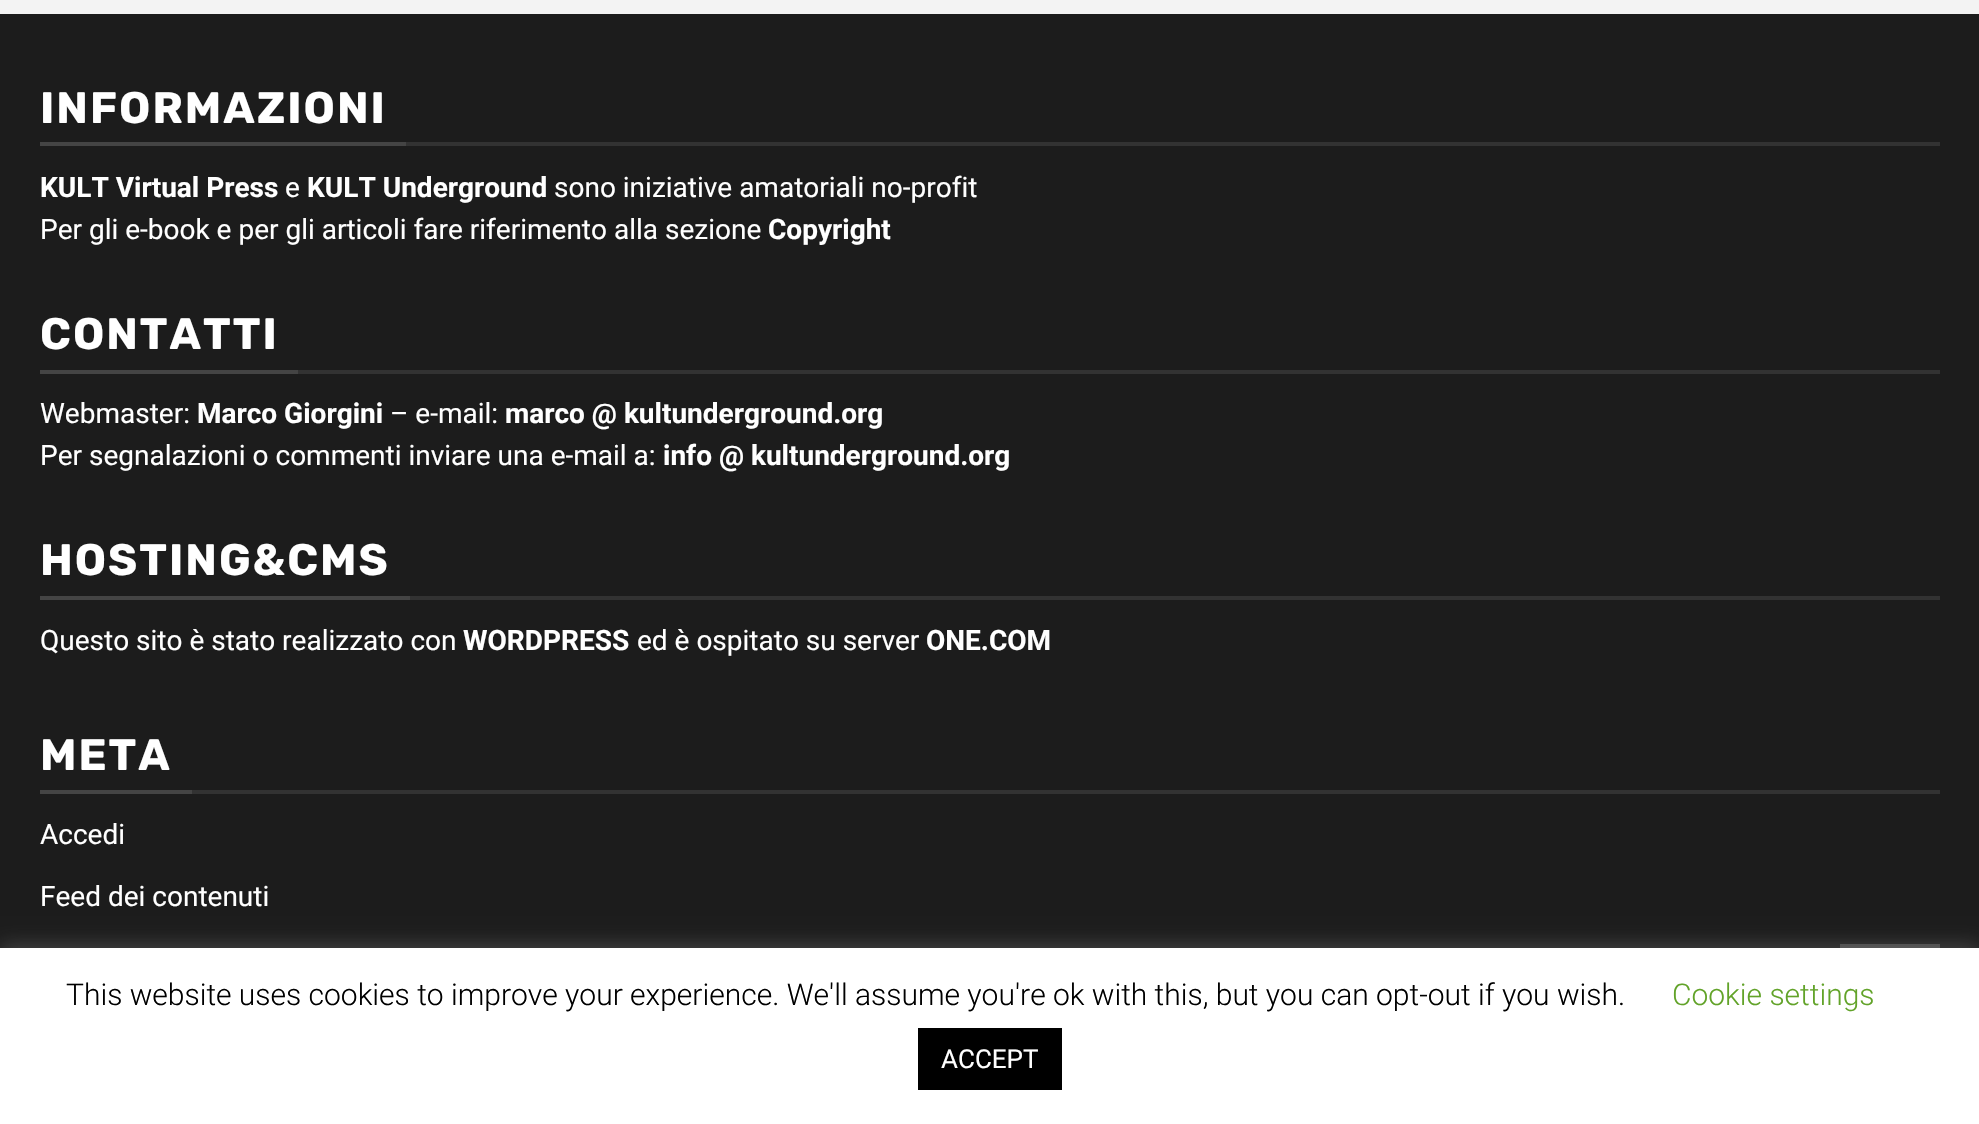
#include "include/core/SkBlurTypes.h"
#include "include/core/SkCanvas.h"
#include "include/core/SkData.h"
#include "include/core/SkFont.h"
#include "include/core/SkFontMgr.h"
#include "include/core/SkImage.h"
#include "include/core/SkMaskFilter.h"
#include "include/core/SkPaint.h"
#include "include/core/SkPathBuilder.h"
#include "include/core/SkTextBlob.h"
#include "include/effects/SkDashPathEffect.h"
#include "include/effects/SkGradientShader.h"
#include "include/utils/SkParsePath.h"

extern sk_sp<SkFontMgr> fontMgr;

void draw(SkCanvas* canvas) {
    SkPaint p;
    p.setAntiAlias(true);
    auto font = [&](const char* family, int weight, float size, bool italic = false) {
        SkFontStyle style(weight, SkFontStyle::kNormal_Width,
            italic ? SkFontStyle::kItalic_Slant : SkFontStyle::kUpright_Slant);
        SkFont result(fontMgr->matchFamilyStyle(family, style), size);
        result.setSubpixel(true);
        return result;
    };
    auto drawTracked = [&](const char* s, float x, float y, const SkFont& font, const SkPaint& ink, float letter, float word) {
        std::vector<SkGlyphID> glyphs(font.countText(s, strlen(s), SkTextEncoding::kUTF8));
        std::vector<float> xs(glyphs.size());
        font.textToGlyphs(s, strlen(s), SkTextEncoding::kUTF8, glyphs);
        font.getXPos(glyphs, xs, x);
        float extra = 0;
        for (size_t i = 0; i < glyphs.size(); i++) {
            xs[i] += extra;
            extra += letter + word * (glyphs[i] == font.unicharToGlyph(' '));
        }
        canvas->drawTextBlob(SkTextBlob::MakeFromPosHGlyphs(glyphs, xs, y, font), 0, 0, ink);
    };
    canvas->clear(0xFFF3F3F3);
    p.setColor(0xFF1C1C1C);
    canvas->drawRect(SkRect::MakeLTRB(0, 14, 1979, 948), p);
    p.setColor(0xFF444444);
    canvas->drawRect(SkRect::MakeLTRB(40, 142, 406, 146), p);
    auto font1 = font("Rubik", 700, 44);
    p.setColor(0xFFFFFFFF);
    drawTracked("INFORMAZIONI", 40, 123, font1, p, 2, 0);
    p.setColor(0xFF323232);
    canvas->drawRect(SkRect::MakeLTRB(406, 142, 1940, 146), p);
    auto font2 = font("Roboto", 700, 28);
    p.setColor(0xFFFFFFFF);
    canvas->drawString("KULT Virtual Press", 40, 197, font2, p);
    auto font3 = font("Roboto", 400, 28);
    canvas->drawString("e", 285, 197, font3, p);
    canvas->drawString("KULT Underground", 307, 197, font2, p);
    canvas->drawString("sono iniziative amatoriali no-profit", 554, 197, font3, p);
    canvas->drawString("Per gli e-book e per gli articoli fare riferimento alla sezione", 40, 239, font3, p);
    canvas->drawString("Copyright", 768, 239, font2, p);
    p.setColor(0xFF444444);
    canvas->drawRect(SkRect::MakeLTRB(40, 370, 298, 374), p);
    p.setColor(0xFFFFFFFF);
    drawTracked("CONTATTI", 40, 349, font1, p, 2, 0);
    p.setColor(0xFF323232);
    canvas->drawRect(SkRect::MakeLTRB(298, 370, 1940, 374), p);
    p.setColor(0xFFFFFFFF);
    canvas->drawString("Webmaster:", 40, 423, font3, p);
    canvas->drawString("Marco Giorgini", 197, 423, font2, p);
    canvas->drawString("– e-mail:", 390, 423, font3, p);
    canvas->drawString("marco @ kultunderground.org", 505, 423, font2, p);
    canvas->drawString("Per segnalazioni o commenti inviare una e-mail a:", 40, 465, font3, p);
    canvas->drawString("info @ kultunderground.org", 663, 465, font2, p);
    p.setColor(0xFF444444);
    canvas->drawRect(SkRect::MakeLTRB(40, 596, 410, 600), p);
    p.setColor(0xFFFFFFFF);
    drawTracked("HOSTING&CMS", 40, 575, font1, p, 2, 0);
    p.setColor(0xFF323232);
    canvas->drawRect(SkRect::MakeLTRB(410, 596, 1940, 600), p);
    p.setColor(0xFFFFFFFF);
    canvas->drawString("Questo sito è stato realizzato con", 40, 650, font3, p);
    canvas->drawString("WORDPRESS", 463, 650, font2, p);
    canvas->drawString("ed è ospitato su server", 637, 650, font3, p);
    canvas->drawString("ONE.COM", 926, 650, font2, p);
    p.setColor(0xFF444444);
    canvas->drawRect(SkRect::MakeLTRB(40, 790, 192, 794), p);
    p.setColor(0xFFFFFFFF);
    drawTracked("META", 40, 770, font1, p, 2, 0);
    p.setColor(0xFF323232);
    canvas->drawRect(SkRect::MakeLTRB(192, 790, 1940, 794), p);
    p.setColor(0xFFFFFFFF);
    canvas->drawString("Accedi", 40, 844, font3, p);
    canvas->drawString("Feed dei contenuti", 40, 906, font3, p);
    p.setColor(0xFF444444);
    canvas->drawRect(SkRect::MakeLTRB(1840, 944, 1940, 948), p);
    p.setColor(0x4DACABAB);
    p.setMaskFilter(SkMaskFilter::MakeBlur(kNormal_SkBlurStyle, 10));
    canvas->drawRect(SkRect::MakeLTRB(0, 946, 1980, 1122), p);
    p.setMaskFilter(nullptr);
    p.setColor(0xFFFFFFFF);
    canvas->drawRect(SkRect::MakeLTRB(0, 948, 1979, 1124), p);
    auto font4 = font("Roboto", 300, 30);
    p.setColor(0xFF000000);
    canvas->drawString("This website uses cookies to improve your experience. We'll assume you're ok with this, but you can opt-out if you wish.", 66, 1005, font4, p);
    p.setColor(0xFF62A329);
    canvas->drawString("Cookie settings", 1672, 1005, font4, p);
    p.setColor(0xFF000000);
    canvas->drawRect(SkRect::MakeLTRB(918, 1028, 1062, 1090), p);
    auto font5 = font("Roboto", 400, 26);
    p.setColor(0xFFFFFFFF);
    canvas->drawString("ACCEPT", 941, 1068, font5, p);
}
